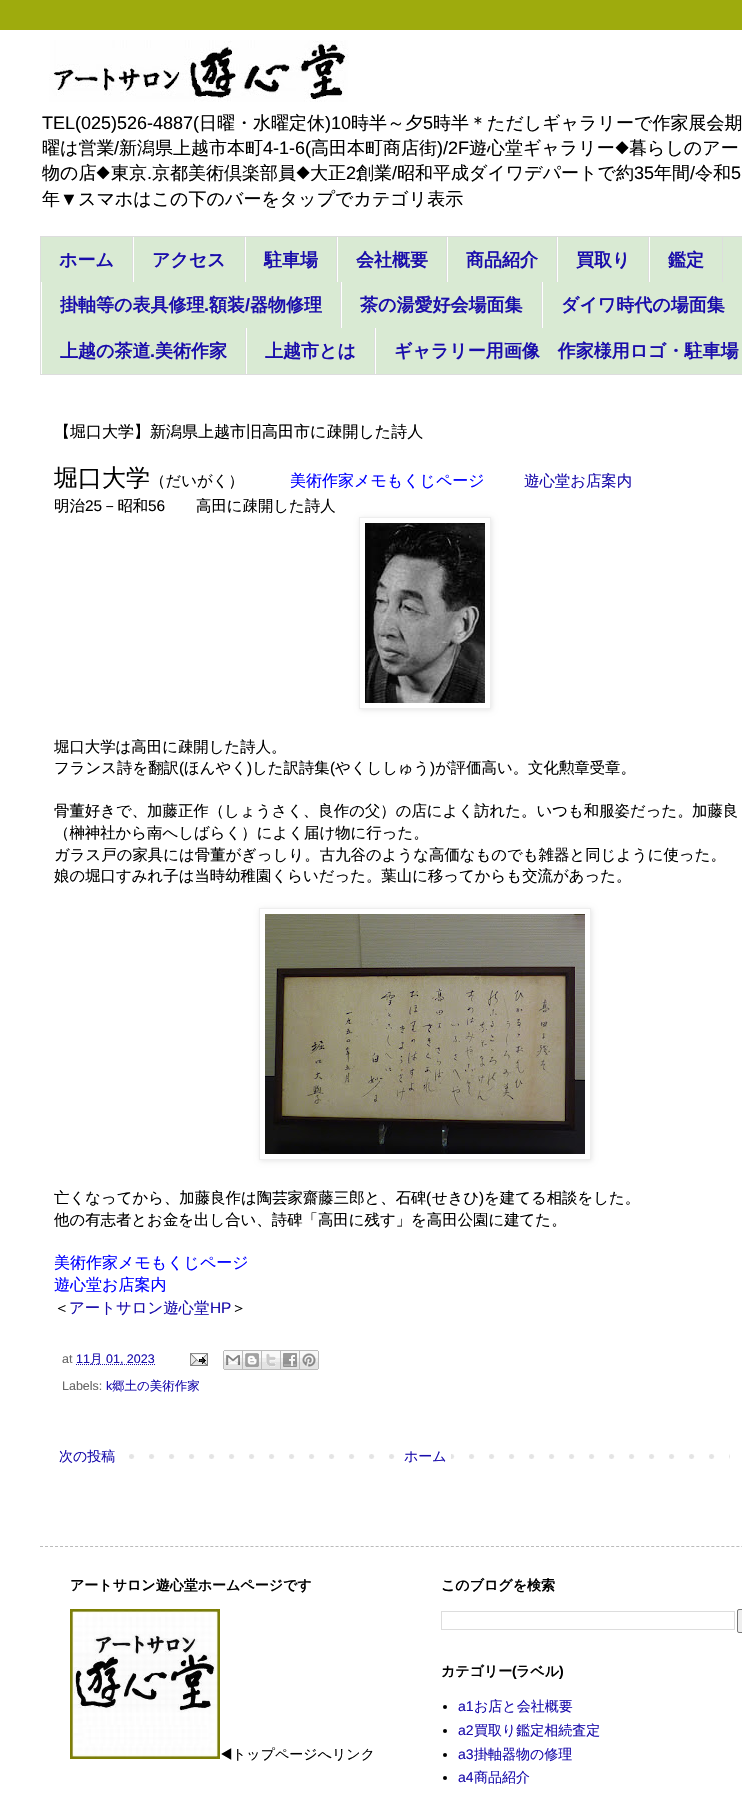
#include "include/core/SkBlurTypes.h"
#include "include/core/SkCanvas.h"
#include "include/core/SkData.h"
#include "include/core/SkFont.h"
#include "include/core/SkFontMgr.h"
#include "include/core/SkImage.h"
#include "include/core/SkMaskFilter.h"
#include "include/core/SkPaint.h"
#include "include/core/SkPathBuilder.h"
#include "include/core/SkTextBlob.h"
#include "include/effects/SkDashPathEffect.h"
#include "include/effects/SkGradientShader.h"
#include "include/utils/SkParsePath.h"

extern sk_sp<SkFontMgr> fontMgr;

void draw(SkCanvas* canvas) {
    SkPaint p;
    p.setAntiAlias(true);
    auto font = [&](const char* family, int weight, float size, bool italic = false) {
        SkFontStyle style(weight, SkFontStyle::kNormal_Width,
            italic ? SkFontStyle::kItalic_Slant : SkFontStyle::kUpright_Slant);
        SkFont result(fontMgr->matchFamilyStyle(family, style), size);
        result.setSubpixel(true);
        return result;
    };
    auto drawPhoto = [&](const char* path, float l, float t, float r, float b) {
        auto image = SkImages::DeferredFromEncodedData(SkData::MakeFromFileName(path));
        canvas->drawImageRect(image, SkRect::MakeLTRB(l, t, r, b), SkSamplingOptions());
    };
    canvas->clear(0xFF9EAB0D);
    p.setColor(0xFFFFFFFF);
    canvas->drawRect(SkRect::MakeLTRB(0, 30, 742, 1793), p);
    drawPhoto("media/1.png", 49, 40, 349, 102);
    auto font1 = font("Liberation Sans", 400, 18);
    p.setColor(0xFF000000);
    canvas->drawString("TEL(025)526-4887(", 42, 129, font1, p);
    auto font2 = font("WenQuanYi Zen Hei", 500, 18);
    canvas->drawString("日曜・水曜定休", 199, 129, font2, p);
    canvas->drawString(")10", 325, 129, font1, p);
    canvas->drawString("時半～夕", 351, 129, font2, p);
    canvas->drawString("5", 423, 129, font1, p);
    canvas->drawString("時半＊ただしギャラリーで作家展会期", 433, 129, font2, p);
    canvas->drawString("曜は営業", 42, 154, font2, p);
    canvas->drawString("/", 114, 154, font1, p);
    canvas->drawString("新潟県上越市本町", 119, 154, font2, p);
    canvas->drawString("4-1-6(", 263, 154, font1, p);
    canvas->drawString("高田本町商店街", 311, 154, font2, p);
    canvas->drawString(")/2F", 437, 154, font1, p);
    canvas->drawString("遊心堂ギャラリー", 469, 154, font2, p);
    auto font3 = font("FreeSans", 400, 18);
    canvas->drawString("◆", 615, 154, font3, p);
    canvas->drawString("暮らしのアー", 629, 154, font2, p);
    canvas->drawString("物の店", 42, 179, font2, p);
    canvas->drawString("◆", 96, 179, font3, p);
    canvas->drawString("東京", 111, 179, font2, p);
    canvas->drawString(".", 147, 179, font1, p);
    canvas->drawString("京都美術倶楽部員", 152, 179, font2, p);
    canvas->drawString("◆", 296, 179, font3, p);
    canvas->drawString("大正", 310, 179, font2, p);
    canvas->drawString("2", 346, 179, font1, p);
    canvas->drawString("創業", 356, 179, font2, p);
    canvas->drawString("/", 392, 179, font1, p);
    canvas->drawString("昭和平成ダイワデパートで約", 397, 179, font2, p);
    canvas->drawString("35", 634, 179, font1, p);
    canvas->drawString("年間", 654, 179, font2, p);
    canvas->drawString("/", 690, 179, font1, p);
    canvas->drawString("令和", 695, 179, font2, p);
    canvas->drawString("5", 731, 179, font1, p);
    canvas->drawString("年", 42, 205, font2, p);
    canvas->drawString("▼", 60, 205, font1, p);
    canvas->drawString("スマホはこの下のバーをタップでカテゴリ表示", 78, 205, font2, p);
    p.setColor(0xFFD9EAD3);
    canvas->drawRect(SkRect::MakeLTRB(40.5f, 236.5f, 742.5f, 374.5f), p);
    p.setStyle(SkPaint::kStroke_Style);
    p.setStrokeWidth(1);
    p.setColor(0xFFDDDDDD);
    canvas->drawRect(SkRect::MakeLTRB(40.5f, 236.5f, 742.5f, 374.5f), p);
    p.setStyle(SkPaint::kFill_Style);
    canvas->drawRect(SkRect::MakeLTRB(132, 237, 133, 282), p);
    auto font4 = font("WenQuanYi Zen Hei", 700, 18);
    p.setColor(0xFF1A0DAB);
    canvas->drawString("ホーム", 59, 266, font4, p);
    p.setColor(0xFFDDDDDD);
    canvas->drawRect(SkRect::MakeLTRB(244, 237, 245, 282), p);
    p.setColor(0xFFFFFFFF);
    canvas->drawRect(SkRect::MakeLTRB(133, 237, 134, 282), p);
    p.setColor(0xFF1A0DAB);
    canvas->drawString("アクセス", 152, 266, font4, p);
    p.setColor(0xFFDDDDDD);
    canvas->drawRect(SkRect::MakeLTRB(336, 237, 337, 282), p);
    p.setColor(0xFFFFFFFF);
    canvas->drawRect(SkRect::MakeLTRB(245, 237, 246, 282), p);
    p.setColor(0xFF1A0DAB);
    canvas->drawString("駐車場", 264, 266, font4, p);
    p.setColor(0xFFDDDDDD);
    canvas->drawRect(SkRect::MakeLTRB(446, 237, 447, 282), p);
    p.setColor(0xFFFFFFFF);
    canvas->drawRect(SkRect::MakeLTRB(337, 237, 338, 282), p);
    p.setColor(0xFF1A0DAB);
    canvas->drawString("会社概要", 356, 266, font4, p);
    p.setColor(0xFFDDDDDD);
    canvas->drawRect(SkRect::MakeLTRB(556, 237, 557, 282), p);
    p.setColor(0xFFFFFFFF);
    canvas->drawRect(SkRect::MakeLTRB(447, 237, 448, 282), p);
    p.setColor(0xFF1A0DAB);
    canvas->drawString("商品紹介", 466, 266, font4, p);
    p.setColor(0xFFDDDDDD);
    canvas->drawRect(SkRect::MakeLTRB(648, 237, 649, 282), p);
    p.setColor(0xFFFFFFFF);
    canvas->drawRect(SkRect::MakeLTRB(557, 237, 558, 282), p);
    p.setColor(0xFF1A0DAB);
    canvas->drawString("買取り", 576, 266, font4, p);
    p.setColor(0xFFDDDDDD);
    canvas->drawRect(SkRect::MakeLTRB(722, 237, 723, 282), p);
    p.setColor(0xFFFFFFFF);
    canvas->drawRect(SkRect::MakeLTRB(649, 237, 650, 282), p);
    p.setColor(0xFF1A0DAB);
    canvas->drawString("鑑定", 668, 266, font4, p);
    p.setColor(0xFFDDDDDD);
    canvas->drawRect(SkRect::MakeLTRB(340, 282, 341, 328), p);
    p.setColor(0xFFFFFFFF);
    canvas->drawRect(SkRect::MakeLTRB(41, 282, 42, 374), p);
    p.setColor(0xFF1A0DAB);
    canvas->drawString("掛軸等の表具修理", 60, 311, font4, p);
    auto font5 = font("Liberation Sans", 700, 18);
    canvas->drawString(".", 204, 311, font5, p);
    canvas->drawString("額装", 209, 311, font4, p);
    canvas->drawString("/", 245, 311, font5, p);
    canvas->drawString("器物修理", 250, 311, font4, p);
    p.setColor(0xFFDDDDDD);
    canvas->drawRect(SkRect::MakeLTRB(541, 282, 542, 328), p);
    p.setColor(0xFFFFFFFF);
    canvas->drawRect(SkRect::MakeLTRB(341, 282, 342, 328), p);
    p.setColor(0xFF1A0DAB);
    canvas->drawString("茶の湯愛好会場面集", 360, 311, font4, p);
    p.setColor(0xFFFFFFFF);
    canvas->drawRect(SkRect::MakeLTRB(542, 282, 543, 328), p);
    p.setColor(0xFF1A0DAB);
    canvas->drawString("ダイワ時代の場面集", 561, 311, font4, p);
    p.setColor(0xFFDDDDDD);
    canvas->drawRect(SkRect::MakeLTRB(245, 328, 246, 374), p);
    p.setColor(0xFF1A0DAB);
    canvas->drawString("上越の茶道", 60, 357, font4, p);
    canvas->drawString(".", 150, 357, font5, p);
    canvas->drawString("美術作家", 155, 357, font4, p);
    p.setColor(0xFFDDDDDD);
    canvas->drawRect(SkRect::MakeLTRB(374, 328, 375, 374), p);
    p.setColor(0xFFFFFFFF);
    canvas->drawRect(SkRect::MakeLTRB(246, 328, 247, 374), p);
    p.setColor(0xFF1A0DAB);
    canvas->drawString("上越市とは", 265, 357, font4, p);
    p.setColor(0xFFFFFFFF);
    canvas->drawRect(SkRect::MakeLTRB(375, 328, 376, 374), p);
    p.setColor(0xFF1A0DAB);
    canvas->drawString("ギャラリー用画像　作家様用ロゴ・駐車場", 394, 357, font4, p);
    auto font6 = font("WenQuanYi Zen Hei", 500, 16);
    p.setColor(0xFF000000);
    canvas->drawString("【堀口大学】新潟県上越市旧高田市に疎開した詩人", 54, 437, font6, p);
    auto font7 = font("WenQuanYi Zen Hei", 500, 24);
    canvas->drawString("堀口大学", 54, 486, font7, p);
    auto font8 = font("WenQuanYi Zen Hei", 500, 15.4f);
    canvas->drawString("（だいがく）", 150, 486, font8, p);
    p.setColor(0xFF0000FF);
    canvas->drawString("美術作家メモもくじページ", 290, 486, font6, p);
    p.setColor(0xFF1A0DAB);
    canvas->drawString("遊心堂お店案内", 524, 486, font8, p);
    p.setColor(0xFF000000);
    canvas->drawString("明治", 54, 511, font8, p);
    auto font9 = font("Liberation Sans", 400, 15.4f);
    canvas->drawString("25", 85, 511, font9, p);
    canvas->drawString("－昭和", 102, 511, font8, p);
    canvas->drawString("56", 148, 511, font9, p);
    canvas->drawString("高田に疎開した詩人", 196, 511, font8, p);
    canvas->save();
    canvas->clipPath(SkPathBuilder(SkPathFillType::kEvenOdd).moveTo(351, 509).lineTo(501, 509).lineTo(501, 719).lineTo(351, 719).close().moveTo(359, 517).lineTo(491, 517).lineTo(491, 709).lineTo(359, 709).close().detach(), true);
    p.setColor(0x1A000000);
    p.setMaskFilter(SkMaskFilter::MakeBlur(kNormal_SkBlurStyle, 2.5f));
    canvas->drawRect(SkRect::MakeLTRB(360, 518, 492, 710), p);
    p.setMaskFilter(nullptr);
    canvas->restore();
    p.setStyle(SkPaint::kStroke_Style);
    p.setColor(0xFFEEEEEE);
    canvas->drawRect(SkRect::MakeLTRB(359.5f, 517.5f, 490.5f, 708.5f), p);
    drawPhoto("media/2.png", 365, 523, 485, 703);
    p.setStyle(SkPaint::kFill_Style);
    p.setColor(0xFF000000);
    canvas->drawString("堀口大学は高田に疎開した詩人。", 54, 752, font8, p);
    canvas->drawString("フランス詩を翻訳", 54, 773, font8, p);
    canvas->drawString("(", 179, 773, font9, p);
    canvas->drawString("ほんやく", 184, 773, font8, p);
    canvas->drawString(")", 247, 773, font9, p);
    canvas->drawString("した訳詩集", 252, 773, font8, p);
    canvas->drawString("(", 330, 773, font9, p);
    canvas->drawString("やくししゅう", 335, 773, font8, p);
    canvas->drawString(")", 430, 773, font9, p);
    {
        const struct { const char* s; float x, y; } items[] = {
            {"が評価高い。文化勲章受章。", 435, 773},
            {"骨董好きで、加藤正作（しょうさく、良作の父）の店によく訪れた。いつも和服姿だった。", 54, 816},
            {"加藤良", 692, 816},
            {"（榊神社から南へしばらく）によく届け物に行った。", 54, 838},
            {"ガラス戸の家具には骨董がぎっしり。古九谷のような高価なものでも雑器と同じように使った。", 54, 860},
            {"娘の堀口すみれ子は当時幼稚園くらいだった。葉山に移ってからも交流があった。", 54, 881},
        };
        for (auto [s, x, y] : items) {
            canvas->drawString(s, x, y, font8, p);
        }
    }
    canvas->save();
    canvas->clipPath(SkPathBuilder(SkPathFillType::kEvenOdd).moveTo(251, 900).lineTo(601, 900).lineTo(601, 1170).lineTo(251, 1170).close().moveTo(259, 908).lineTo(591, 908).lineTo(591, 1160).lineTo(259, 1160).close().detach(), true);
    p.setColor(0x1A000000);
    p.setMaskFilter(SkMaskFilter::MakeBlur(kNormal_SkBlurStyle, 2.5f));
    canvas->drawRect(SkRect::MakeLTRB(260, 909, 592, 1161), p);
    p.setMaskFilter(nullptr);
    canvas->restore();
    p.setStyle(SkPaint::kStroke_Style);
    p.setColor(0xFFEEEEEE);
    canvas->drawRect(SkRect::MakeLTRB(259.5f, 908.5f, 590.5f, 1159.5f), p);
    drawPhoto("media/3.png", 265, 914, 585, 1154);
    p.setStyle(SkPaint::kFill_Style);
    p.setColor(0xFF000000);
    canvas->drawString("亡くなってから、加藤良作は陶芸家齋藤三郎と、石碑", 54, 1203, font8, p);
    canvas->drawString("(", 426, 1203, font9, p);
    canvas->drawString("せきひ", 432, 1203, font8, p);
    canvas->drawString(")", 479, 1203, font9, p);
    canvas->drawString("を建てる相談をした。", 484, 1203, font8, p);
    canvas->drawString("他の有志者とお金を出し合い、詩碑「高田に残す」を高田公園に建てた。", 54, 1225, font8, p);
    p.setColor(0xFF0000FF);
    canvas->drawString("美術作家メモもくじページ", 54, 1268, font6, p);
    canvas->drawString("遊心堂お店案内", 54, 1290, font6, p);
    p.setColor(0xFF000000);
    canvas->drawString("＜", 54, 1313, font8, p);
    p.setColor(0xFF1A0DAB);
    canvas->drawString("アートサロン遊心堂", 69, 1313, font8, p);
    canvas->drawString("HP", 210, 1313, font9, p);
    p.setColor(0xFF000000);
    canvas->drawString("＞", 231, 1313, font8, p);
    auto font10 = font("Liberation Sans", 400, 12.5f);
    p.setColor(0xFF666666);
    canvas->drawString("at", 62, 1363, font10, p);
    p.setColor(0xFF1A0DAB);
    canvas->drawString("11", 76, 1363, font10, p);
    p.setStyle(SkPaint::kStroke_Style);
    p.setPathEffect(SkDashPathEffect::Make({{1, 1}}, 0));
    canvas->drawPath(SkPathBuilder().moveTo(76, 1364.5f).lineTo(155, 1364.5f).detach(), p);
    p.setPathEffect(nullptr);
    auto font11 = font("WenQuanYi Zen Hei", 500, 12.5f);
    p.setStyle(SkPaint::kFill_Style);
    canvas->drawString("月", 90, 1363, font11, p);
    canvas->drawString("01, 2023", 106, 1363, font10, p);
    drawPhoto("media/4.png", 190, 1353, 208, 1366);
    drawPhoto("media/5.png", 223, 1350, 243, 1370);
    drawPhoto("media/6.png", 243, 1350, 262, 1370);
    drawPhoto("media/7.png", 262, 1350, 281, 1370);
    drawPhoto("media/8.png", 281, 1350, 300, 1370);
    drawPhoto("media/9.png", 300, 1350, 319, 1370);
    p.setColor(0xFF666666);
    canvas->drawString("Labels:", 62, 1390, font10, p);
    p.setColor(0xFF1A0DAB);
    canvas->drawString("k", 106, 1390, font10, p);
    canvas->drawString("郷土の美術作家", 112, 1390, font11, p);
    drawPhoto("media/10.png", 129, 1454, 730, 1459);
    auto font12 = font("WenQuanYi Zen Hei", 500, 14);
    canvas->drawString("次の投稿", 59, 1461, font12, p);
    p.setColor(0xFFFFFFFF);
    canvas->drawRect(SkRect::MakeLTRB(409, 1454, 451, 1459), p);
    p.setColor(0xFF1A0DAB);
    canvas->drawString("ホーム", 404, 1461, font12, p);
    p.setStyle(SkPaint::kStroke_Style);
    p.setColor(0xFFBBBBBB);
    p.setPathEffect(SkDashPathEffect::Make({{3, 2.01f}}, 0));
    canvas->drawPath(SkPathBuilder().moveTo(40, 1546.5f).lineTo(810, 1546.5f).detach(), p);
    p.setPathEffect(nullptr);
    auto font13 = font("WenQuanYi Zen Hei", 700, 14);
    p.setStyle(SkPaint::kFill_Style);
    p.setColor(0xFF000000);
    canvas->drawString("アートサロン遊心堂ホームページです", 70, 1590, font13, p);
    drawPhoto("media/11.png", 70, 1609, 220, 1759);
    auto font14 = font("FreeSans", 400, 14);
    canvas->drawString("◀", 220, 1759, font14, p);
    canvas->drawString("トップページへリンク", 232, 1759, font12, p);
    canvas->drawString("このブログを検索", 441, 1590, font13, p);
    p.setStyle(SkPaint::kStroke_Style);
    p.setColor(0xFFDDDDDD);
    canvas->drawRect(SkRect::MakeLTRB(441.5f, 1611.5f, 734.5f, 1629.5f), p);
    p.setStyle(SkPaint::kFill_Style);
    p.setColor(0xFFEFEFEF);
    canvas->drawRoundRect(SkRect::MakeLTRB(737.5f, 1609.5f, 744.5f, 1632.5f), 1.5f, 1.5f, p);
    p.setStyle(SkPaint::kStroke_Style);
    p.setColor(0xFF767676);
    canvas->drawRoundRect(SkRect::MakeLTRB(737.5f, 1609.5f, 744.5f, 1632.5f), 1.5f, 1.5f, p);
    p.setStyle(SkPaint::kFill_Style);
    p.setColor(0xFF000000);
    canvas->drawString("カテゴリー", 441, 1676, font13, p);
    auto font15 = font("Liberation Sans", 700, 14);
    canvas->drawString("(", 512, 1676, font15, p);
    canvas->drawString("ラベル", 516, 1676, font13, p);
    canvas->drawString(")", 559, 1676, font15, p);
    canvas->drawCircle(445, 1707, 2, p);
    auto font16 = font("Liberation Sans", 400, 14);
    p.setColor(0xFF1A0DAB);
    canvas->drawString("a1", 458, 1711, font16, p);
    canvas->drawString("お店と会社概要", 474, 1711, font12, p);
    p.setColor(0xFF000000);
    canvas->drawCircle(445, 1731, 2, p);
    p.setColor(0xFF1A0DAB);
    canvas->drawString("a2", 458, 1735, font16, p);
    canvas->drawString("買取り鑑定相続査定", 474, 1735, font12, p);
    p.setColor(0xFF000000);
    canvas->drawCircle(445, 1755, 2, p);
    p.setColor(0xFF1A0DAB);
    canvas->drawString("a3", 458, 1759, font16, p);
    canvas->drawString("掛軸器物の修理", 474, 1759, font12, p);
    p.setColor(0xFF000000);
    canvas->drawCircle(445, 1778, 2, p);
    p.setColor(0xFF1A0DAB);
    canvas->drawString("a4", 458, 1782, font16, p);
    canvas->drawString("商品紹介", 474, 1782, font12, p);
}
